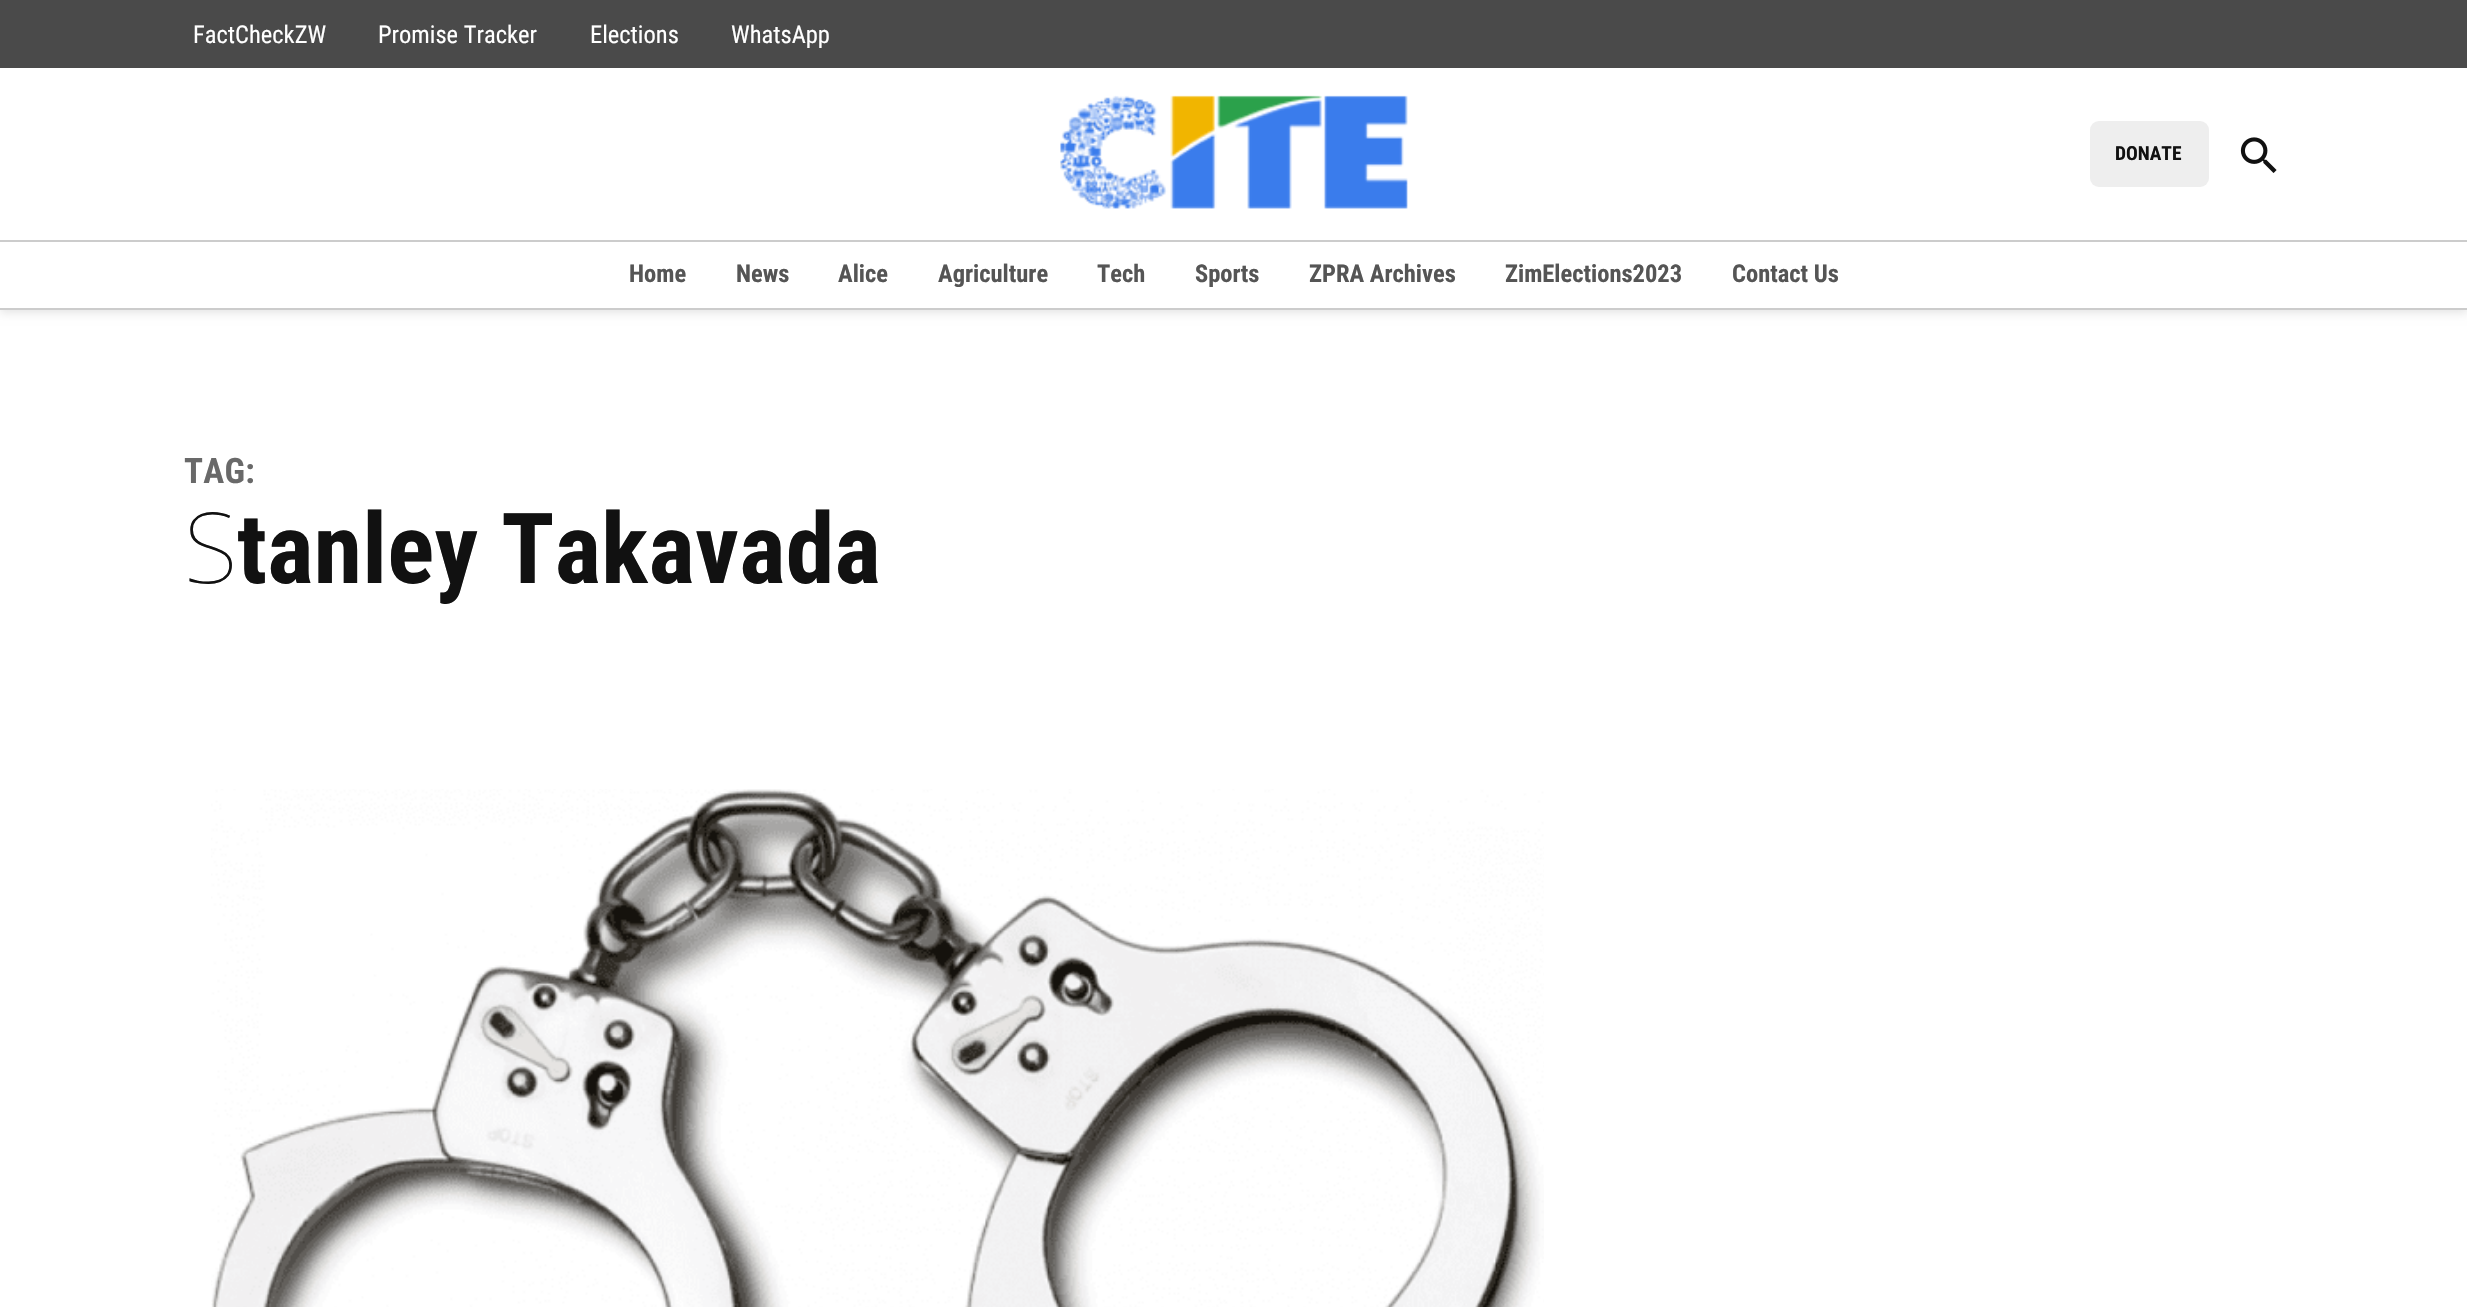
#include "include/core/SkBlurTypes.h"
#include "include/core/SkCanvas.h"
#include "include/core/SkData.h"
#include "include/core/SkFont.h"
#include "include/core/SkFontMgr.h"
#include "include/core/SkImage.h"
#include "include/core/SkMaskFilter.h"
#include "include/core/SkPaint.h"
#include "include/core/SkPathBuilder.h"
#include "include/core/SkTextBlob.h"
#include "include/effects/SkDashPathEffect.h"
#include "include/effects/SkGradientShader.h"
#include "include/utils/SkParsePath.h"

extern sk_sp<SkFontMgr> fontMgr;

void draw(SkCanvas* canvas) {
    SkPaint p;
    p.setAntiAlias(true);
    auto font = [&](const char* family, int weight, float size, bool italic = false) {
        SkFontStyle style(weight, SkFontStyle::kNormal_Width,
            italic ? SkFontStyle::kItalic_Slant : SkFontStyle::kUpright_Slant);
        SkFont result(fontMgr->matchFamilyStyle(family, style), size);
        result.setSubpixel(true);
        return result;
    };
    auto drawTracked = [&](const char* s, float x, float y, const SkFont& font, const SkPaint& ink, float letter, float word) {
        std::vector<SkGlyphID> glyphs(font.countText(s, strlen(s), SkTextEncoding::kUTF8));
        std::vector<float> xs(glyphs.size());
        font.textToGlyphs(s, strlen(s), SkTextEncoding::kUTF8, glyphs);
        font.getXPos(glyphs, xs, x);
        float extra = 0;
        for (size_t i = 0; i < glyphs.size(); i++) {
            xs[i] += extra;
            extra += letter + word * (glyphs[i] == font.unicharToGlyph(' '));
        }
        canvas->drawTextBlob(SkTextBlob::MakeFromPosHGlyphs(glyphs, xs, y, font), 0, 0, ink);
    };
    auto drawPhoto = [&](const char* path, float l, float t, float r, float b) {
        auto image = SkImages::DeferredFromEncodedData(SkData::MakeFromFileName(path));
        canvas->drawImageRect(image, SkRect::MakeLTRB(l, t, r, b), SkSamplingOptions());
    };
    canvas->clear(0xFFFFFFFF);
    p.setColor(0x1A000000);
    p.setMaskFilter(SkMaskFilter::MakeBlur(kNormal_SkBlurStyle, 4.5f));
    canvas->drawRect(SkRect::MakeLTRB(0, 4, 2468, 313), p);
    p.setMaskFilter(nullptr);
    p.setColor(0xFFFFFFFF);
    canvas->drawRect(SkRect::MakeLTRB(0, 68, 2467, 308), p);
    p.setColor(0xFF4A4A4A);
    canvas->drawRect(SkRect::MakeLTRB(0, 0, 2467, 68), p);
    auto font1 = font("Roboto Condensed", 400, 24.5f);
    p.setColor(0xFFFFFFFF);
    {
        const struct { const char* s; float x, y; } items[] = {
            {"FactCheckZW", 193, 43},
            {"Promise Tracker", 378, 43},
            {"Elections", 590, 43},
            {"WhatsApp", 731, 43},
        };
        for (auto [s, x, y] : items) {
            canvas->drawString(s, x, y, font1, p);
        }
    }
    drawPhoto("media/1.png", 1060, 95, 1408, 209);
    p.setColor(0xFFEEEEEE);
    canvas->drawRoundRect(SkRect::MakeLTRB(2090, 121, 2209, 187), 9, 9, p);
    auto font2 = font("Roboto Condensed", 700, 19.5f);
    p.setColor(0xFF111111);
    canvas->drawString("DONATE", 2115, 160, font2, p);
    drawPhoto("media/2.png", 2240, 137, 2277, 173);
    p.setColor(0xFFCCCCCC);
    canvas->drawRect(SkRect::MakeLTRB(0, 240, 2467, 242), p);
    canvas->drawRect(SkRect::MakeLTRB(0, 308, 2467, 310), p);
    auto font3 = font("Roboto Condensed", 700, 24.5f);
    p.setColor(0xFF555555);
    {
        const struct { const char* s; float x, y; } items[] = {
            {"Home", 629, 282},
            {"News", 736, 282},
            {"Alice", 838, 282},
            {"Agriculture", 938, 282},
            {"Tech", 1097, 282},
            {"Sports", 1195, 282},
            {"ZPRA Archives", 1309, 282},
            {"ZimElections2023", 1505, 282},
            {"Contact Us", 1732, 282},
        };
        for (auto [s, x, y] : items) {
            canvas->drawString(s, x, y, font3, p);
        }
    }
    auto font4 = font("Roboto Condensed", 700, 35);
    p.setColor(0xFF696969);
    drawTracked("TAG:", 184, 483, font4, p, 0.3f, 0);
    auto font5 = font("Noto Sans", 100, 98);
    p.setColor(0xFF111111);
    drawTracked("S", 184, 583, font5, p, 0.3f, 0);
    auto font6 = font("Roboto Condensed", 700, 98);
    drawTracked("tanley Takavada", 237, 583, font6, p, 0.3f, 0);
    drawPhoto("media/3.png", 211, 789, 1544, 1307);
}
